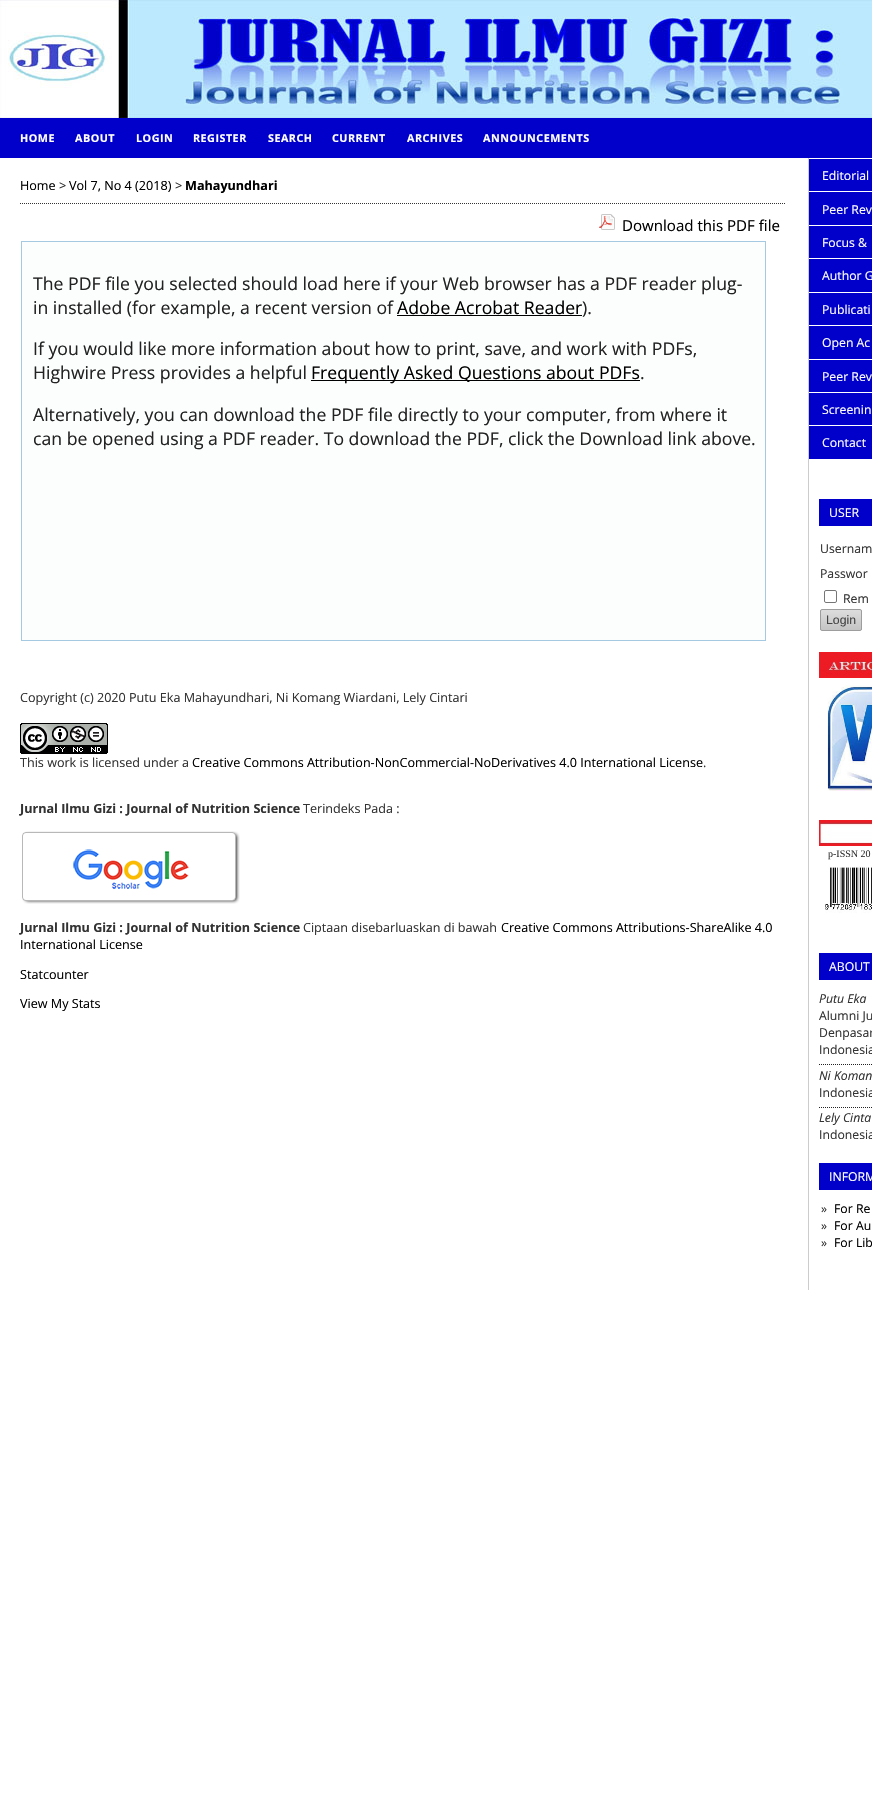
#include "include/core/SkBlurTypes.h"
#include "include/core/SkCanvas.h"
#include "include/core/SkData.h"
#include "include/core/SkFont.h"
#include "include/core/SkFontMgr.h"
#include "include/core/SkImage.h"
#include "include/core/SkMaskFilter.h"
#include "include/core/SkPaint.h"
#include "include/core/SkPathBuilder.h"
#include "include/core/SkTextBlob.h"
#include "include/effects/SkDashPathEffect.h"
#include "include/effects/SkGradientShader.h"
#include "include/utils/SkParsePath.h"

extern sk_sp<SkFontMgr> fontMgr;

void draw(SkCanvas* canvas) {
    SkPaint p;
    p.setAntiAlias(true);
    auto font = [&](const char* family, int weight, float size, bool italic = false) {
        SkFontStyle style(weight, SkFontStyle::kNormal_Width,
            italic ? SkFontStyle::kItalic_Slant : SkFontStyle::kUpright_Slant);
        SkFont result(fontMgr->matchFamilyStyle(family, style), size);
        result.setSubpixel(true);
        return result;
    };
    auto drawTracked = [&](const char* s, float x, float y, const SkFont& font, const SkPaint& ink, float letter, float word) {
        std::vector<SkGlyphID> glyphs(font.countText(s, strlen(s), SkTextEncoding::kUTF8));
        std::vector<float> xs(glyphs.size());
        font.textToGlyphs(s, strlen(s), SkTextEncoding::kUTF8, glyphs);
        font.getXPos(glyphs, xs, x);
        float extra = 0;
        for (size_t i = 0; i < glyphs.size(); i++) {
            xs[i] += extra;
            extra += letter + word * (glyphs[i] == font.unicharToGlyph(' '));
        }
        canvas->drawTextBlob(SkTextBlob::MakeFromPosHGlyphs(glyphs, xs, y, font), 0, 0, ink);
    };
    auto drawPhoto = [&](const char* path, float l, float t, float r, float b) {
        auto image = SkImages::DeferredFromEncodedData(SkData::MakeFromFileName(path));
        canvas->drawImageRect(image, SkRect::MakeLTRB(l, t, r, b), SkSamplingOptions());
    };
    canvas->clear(0xFFFFFFFF);
    drawPhoto("media/1.png", 0, 0, 872, 118);
    p.setColor(0xFF0000CA);
    canvas->drawRect(SkRect::MakeLTRB(0, 118, 872, 158), p);
    auto font1 = font("Open Sans", 700, 10.75f);
    p.setColor(0xFFFFFFFF);
    {
        const struct { const char* s; float x, y; } items[] = {
            {"HOME", 20, 142},
            {"ABOUT", 75, 142},
            {"LOGIN", 136, 142},
            {"REGISTER", 193, 142},
            {"SEARCH", 268, 142},
            {"CURRENT", 332, 142},
            {"ARCHIVES", 407, 142},
            {"ANNOUNCEMENTS", 483, 142},
        };
        for (auto [s, x, y] : items) {
            drawTracked(s, x, y, font1, p, 0.5f, 0);
        }
    }
    p.setStyle(SkPaint::kStroke_Style);
    p.setStrokeWidth(1);
    p.setColor(0xFF333333);
    p.setPathEffect(SkDashPathEffect::Make({{1, 1}}, 0));
    canvas->drawPath(SkPathBuilder().moveTo(20, 203.5f).lineTo(785, 203.5f).detach(), p);
    p.setPathEffect(nullptr);
    auto font2 = font("Open Sans", 400, 12.6f);
    p.setStyle(SkPaint::kFill_Style);
    p.setColor(0xFF000000);
    canvas->drawString("Home", 20, 190, font2, p);
    p.setColor(0xFF333333);
    canvas->drawString(">", 59, 190, font2, p);
    p.setColor(0xFF000000);
    canvas->drawString("Vol 7, No 4 (2018)", 69, 190, font2, p);
    p.setColor(0xFF333333);
    canvas->drawString(">", 175, 190, font2, p);
    auto font3 = font("Open Sans", 700, 12.6f);
    p.setColor(0xFF000000);
    canvas->drawString("Mahayundhari", 185, 190, font3, p);
    drawPhoto("media/2.png", 599, 214, 615, 230);
    auto font4 = font("Open Sans", 400, 15.1f);
    canvas->drawString("Download this PDF file", 622, 231, font4, p);
    p.setColor(0xFFFCFDFD);
    canvas->drawRect(SkRect::MakeLTRB(21.5f, 241.5f, 765.5f, 640.5f), p);
    p.setStyle(SkPaint::kStroke_Style);
    p.setColor(0xFFA6C9E2);
    canvas->drawRect(SkRect::MakeLTRB(21.5f, 241.5f, 765.5f, 640.5f), p);
    auto font5 = font("Open Sans", 400, 17.65f);
    p.setStyle(SkPaint::kFill_Style);
    p.setColor(0xFF222222);
    canvas->drawString("The PDF file you selected should load here if your Web browser has a PDF reader plug-", 33, 290, font5, p);
    canvas->drawString("in installed (for example, a recent version of", 33, 314, font5, p);
    p.setColor(0xFF000000);
    canvas->drawString("Adobe Acrobat Reader", 397, 314, font5, p);
    canvas->drawRect(SkRect::MakeLTRB(397, 315, 582, 316), p);
    p.setColor(0xFF222222);
    {
        const struct { const char* s; float x, y; } items[] = {
            {").", 582, 314},
            {"If you would like more information about how to print, save, and work with PDFs,", 33, 355},
            {"Highwire Press provides a helpful", 33, 379},
        };
        for (auto [s, x, y] : items) {
            canvas->drawString(s, x, y, font5, p);
        }
    }
    p.setColor(0xFF000000);
    canvas->drawRect(SkRect::MakeLTRB(311, 380, 640, 381), p);
    canvas->drawString("Frequently Asked Questions about PDFs", 311, 379, font5, p);
    p.setColor(0xFF222222);
    {
        const struct { const char* s; float x, y; } items[] = {
            {".", 640, 379},
            {"Alternatively, you can download the PDF file directly to your computer, from where it", 33, 421},
            {"can be opened using a PDF reader. To download the PDF, click the Download link above.", 33, 445},
        };
        for (auto [s, x, y] : items) {
            canvas->drawString(s, x, y, font5, p);
        }
    }
    p.setColor(0xFF333333);
    canvas->drawString("Copyright (c) 2020 Putu Eka Mahayundhari, Ni Komang Wiardani, Lely Cintari", 20, 702, font2, p);
    drawPhoto("media/3.png", 20, 723, 108, 754);
    canvas->drawString("This work is licensed under a", 20, 767, font2, p);
    p.setColor(0xFF000000);
    canvas->drawString("Creative Commons Attribution-NonCommercial-NoDerivatives 4.0 International License", 192, 767, font2, p);
    p.setColor(0xFF333333);
    canvas->drawString(".", 703, 767, font2, p);
    canvas->drawString("Jurnal Ilmu Gizi : Journal of Nutrition Science", 20, 813, font3, p);
    canvas->drawString("Terindeks Pada :", 303, 813, font2, p);
    drawPhoto("media/4.png", 22, 831, 240, 904);
    canvas->drawString("Jurnal Ilmu Gizi : Journal of Nutrition Science", 20, 932, font3, p);
    canvas->drawString("Ciptaan disebarluaskan di bawah", 303, 932, font2, p);
    p.setColor(0xFF000000);
    {
        const struct { const char* s; float x, y; } items[] = {
            {"Creative Commons Attributions-ShareAlike 4.0", 501, 932},
            {"International License", 20, 949},
            {"Statcounter", 20, 979},
            {"View My Stats", 20, 1008},
        };
        for (auto [s, x, y] : items) {
            canvas->drawString(s, x, y, font2, p);
        }
    }
    p.setColor(0xFFCCCCCC);
    canvas->drawRect(SkRect::MakeLTRB(808, 158, 809, 1290), p);
    p.setColor(0xFF0000CA);
    canvas->drawRect(SkRect::MakeLTRB(809, 159, 872, 191), p);
    auto font6 = font("Open Sans", 400, 12.25f);
    p.setColor(0xFFFFFFFF);
    canvas->drawString("Editorial", 822, 180, font6, p);
    p.setColor(0xFF0000CA);
    canvas->drawRect(SkRect::MakeLTRB(809, 192, 872, 225), p);
    p.setColor(0xFFFFFFFF);
    canvas->drawString("Peer Rev", 822, 214, font6, p);
    p.setColor(0xFF0000CA);
    canvas->drawRect(SkRect::MakeLTRB(809, 226, 872, 258), p);
    p.setColor(0xFFFFFFFF);
    canvas->drawString("Focus &", 822, 247, font6, p);
    p.setColor(0xFF0000CA);
    canvas->drawRect(SkRect::MakeLTRB(809, 259, 872, 292), p);
    p.setColor(0xFFFFFFFF);
    canvas->drawString("Author G", 822, 280, font6, p);
    p.setColor(0xFF0000CA);
    canvas->drawRect(SkRect::MakeLTRB(809, 293, 872, 325), p);
    p.setColor(0xFFFFFFFF);
    canvas->drawString("Publicati", 822, 314, font6, p);
    p.setColor(0xFF0000CA);
    canvas->drawRect(SkRect::MakeLTRB(809, 326, 872, 359), p);
    p.setColor(0xFFFFFFFF);
    canvas->drawString("Open Ac", 822, 347, font6, p);
    p.setColor(0xFF0000CA);
    canvas->drawRect(SkRect::MakeLTRB(809, 360, 872, 392), p);
    p.setColor(0xFFFFFFFF);
    canvas->drawString("Peer Rev", 822, 381, font6, p);
    p.setColor(0xFF0000CA);
    canvas->drawRect(SkRect::MakeLTRB(809, 393, 872, 425), p);
    p.setColor(0xFFFFFFFF);
    canvas->drawString("Screenin", 822, 414, font6, p);
    p.setColor(0xFF0000CA);
    canvas->drawRect(SkRect::MakeLTRB(809, 426, 872, 459), p);
    p.setColor(0xFFFFFFFF);
    canvas->drawString("Contact", 822, 447, font6, p);
    p.setColor(0xFF0000CA);
    canvas->drawRect(SkRect::MakeLTRB(819, 499, 872, 526), p);
    p.setColor(0xFFFFFFFF);
    canvas->drawString("USER", 829, 517, font6, p);
    p.setColor(0xFF333333);
    canvas->drawString("Usernam", 820, 553, font6, p);
    canvas->drawString("Passwor", 820, 578, font6, p);
    p.setStyle(SkPaint::kStroke_Style);
    p.setColor(0xFF767676);
    canvas->drawRoundRect(SkRect::MakeLTRB(824.5f, 590.5f, 836.5f, 602.5f), 1.5f, 1.5f, p);
    p.setStyle(SkPaint::kFill_Style);
    p.setColor(0xFF333333);
    canvas->drawString("Rem", 843, 603, font6, p);
    canvas->save();
    canvas->clipPath(SkPathBuilder().moveTo(822, 609).lineTo(860, 609).cubicTo(861, 609, 862, 610, 862, 611).lineTo(862, 629).cubicTo(862, 630, 861, 631, 860, 631).lineTo(822, 631).cubicTo(821, 631, 820, 630, 820, 629).lineTo(820, 611).cubicTo(820, 610, 821, 609, 822, 609).close().detach(), true);
    {
        const SkColor colors[] = {0xFFDDDDDD, 0xFFC4C4C4};
        const float stops[] = {0, 1};
        const SkPoint ends[] = {{841, 610}, {841, 630}};
        p.setShader(SkGradientShader::MakeLinear(ends, colors, stops, 2, SkTileMode::kClamp));
        p.setAlpha(255);
    }
    canvas->drawRect(SkRect::MakeLTRB(820, 610, 862, 630), p);
    canvas->restore();
    p.setStyle(SkPaint::kStroke_Style);
    p.setShader(nullptr);
    p.setColor(0xFF9D9D9D);
    canvas->drawRoundRect(SkRect::MakeLTRB(820.5f, 609.5f, 861.5f, 630.5f), 1.5f, 1.5f, p);
    auto font7 = font("Liberation Sans", 400, 12.25f);
    p.setStyle(SkPaint::kFill_Style);
    p.setColor(0xFF444444);
    canvas->drawString("Login", 826, 624, font7, p);
    drawPhoto("media/5.png", 819, 652, 872, 678);
    drawPhoto("media/6.png", 827, 685, 872, 791);
    drawPhoto("media/7.png", 819, 820, 872, 846);
    auto font8 = font("Liberation Serif", 400, 10);
    p.setColor(0xFF333333);
    canvas->drawString("p-ISSN 20", 828, 857, font8, p);
    drawPhoto("media/8.png", 825, 866, 872, 913);
    p.setColor(0xFF0000CA);
    canvas->drawRect(SkRect::MakeLTRB(819, 953, 872, 980), p);
    p.setColor(0xFFFFFFFF);
    canvas->drawString("ABOUT", 829, 971, font6, p);
    auto font9 = font("Open Sans", 400, 12.25f, true);
    p.setColor(0xFF333333);
    canvas->drawString("Putu Eka", 819, 1003, font9, p);
    {
        const struct { const char* s; float x, y; } items[] = {
            {"Alumni Ju", 819, 1020},
            {"Denpasar", 819, 1037},
            {"Indonesia", 819, 1054},
        };
        for (auto [s, x, y] : items) {
            canvas->drawString(s, x, y, font6, p);
        }
    }
    p.setStyle(SkPaint::kStroke_Style);
    p.setColor(0xFF222222);
    p.setPathEffect(SkDashPathEffect::Make({{1, 1}}, 0));
    canvas->drawPath(SkPathBuilder().moveTo(819, 1064.5f).lineTo(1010, 1064.5f).moveTo(819, 1107.5f).lineTo(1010, 1107.5f).detach(), p);
    p.setPathEffect(nullptr);
    p.setStyle(SkPaint::kFill_Style);
    p.setColor(0xFF333333);
    canvas->drawString("Ni Koman", 819, 1080, font9, p);
    canvas->drawString("Indonesia", 819, 1097, font6, p);
    canvas->drawString("Lely Cinta", 819, 1122, font9, p);
    canvas->drawString("Indonesia", 819, 1139, font6, p);
    p.setColor(0xFF0000CA);
    canvas->drawRect(SkRect::MakeLTRB(819, 1163, 872, 1190), p);
    p.setColor(0xFFFFFFFF);
    canvas->drawString("INFORM", 829, 1181, font6, p);
    p.setColor(0xFF333333);
    canvas->drawString("»", 821, 1213, font6, p);
    p.setColor(0xFF000000);
    canvas->drawString("For Re", 834, 1213, font6, p);
    p.setColor(0xFF333333);
    canvas->drawString("»", 821, 1230, font6, p);
    p.setColor(0xFF000000);
    canvas->drawString("For Au", 834, 1230, font6, p);
    p.setColor(0xFF333333);
    canvas->drawString("»", 821, 1247, font6, p);
    p.setColor(0xFF000000);
    canvas->drawString("For Lib", 834, 1247, font6, p);
}
